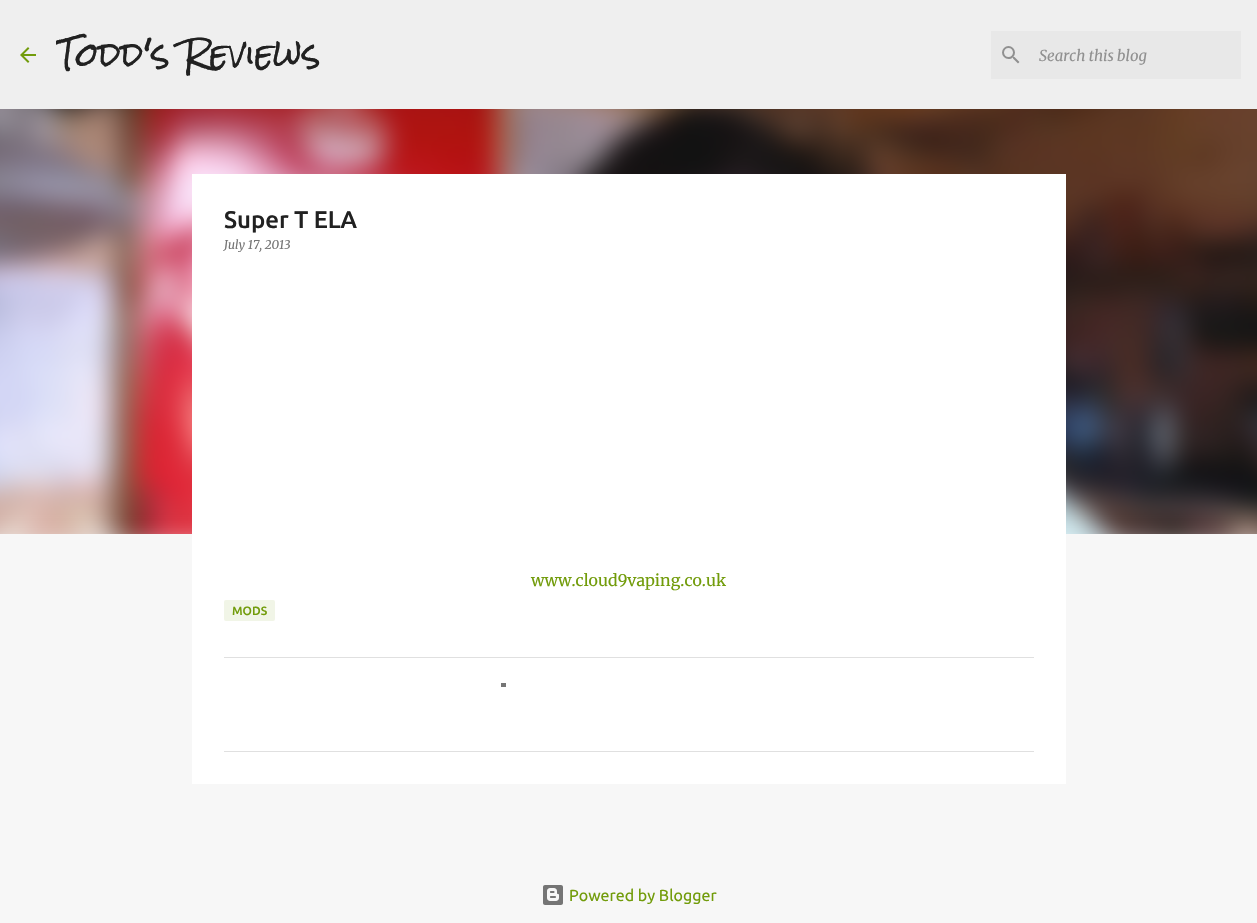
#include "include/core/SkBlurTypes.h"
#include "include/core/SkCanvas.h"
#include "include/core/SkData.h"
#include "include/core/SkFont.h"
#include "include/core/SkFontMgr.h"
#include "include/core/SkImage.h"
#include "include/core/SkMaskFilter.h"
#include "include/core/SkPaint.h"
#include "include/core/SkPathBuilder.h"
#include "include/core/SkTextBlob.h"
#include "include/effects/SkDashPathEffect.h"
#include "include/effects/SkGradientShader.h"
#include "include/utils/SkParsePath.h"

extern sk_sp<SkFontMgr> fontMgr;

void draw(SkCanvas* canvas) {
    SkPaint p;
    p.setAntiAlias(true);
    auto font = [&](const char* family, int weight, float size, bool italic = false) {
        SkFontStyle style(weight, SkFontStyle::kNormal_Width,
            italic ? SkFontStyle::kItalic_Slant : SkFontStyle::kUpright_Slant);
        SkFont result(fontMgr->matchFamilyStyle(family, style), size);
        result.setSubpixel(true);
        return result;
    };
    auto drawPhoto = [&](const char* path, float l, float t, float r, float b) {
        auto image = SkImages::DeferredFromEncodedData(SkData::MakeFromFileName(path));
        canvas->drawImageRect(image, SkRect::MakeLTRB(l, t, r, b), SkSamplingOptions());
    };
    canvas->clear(0xFFF7F7F7);
    p.setColor(0xFFEFEFEF);
    canvas->drawRect(SkRect::MakeLTRB(0, 0, 1257, 109), p);
    drawPhoto("media/1.png", 20, 47, 36, 63);
    canvas->save();
    canvas->clipRect(SkRect::MakeLTRB(56, 16, 321, 93));
    auto font1 = font("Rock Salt", 400, 32);
    p.setColor(0xFF212121);
    canvas->drawString("Todd's Reviews", 56, 67, font1, p);
    canvas->restore();
    p.setColor(0xFFE8E8E8);
    canvas->drawRect(SkRect::MakeLTRB(991, 31, 1241, 79), p);
    drawPhoto("media/2.png", 1002, 46, 1020, 64);
    auto font2 = font("Merriweather", 400, 15, true);
    p.setColor(0xFF909090);
    canvas->drawString("Search this blog", 1039, 61, font2, p);
    drawPhoto("media/3.png", 0, 109, 1257, 534);
    {
        const struct { float l, t, r, b; SkColor color; } items[] = {
            {192, 174, 1066, 784, 0xFFFFFFFF},
            {224, 657, 1034, 658, 0xFFE0E0E0},
            {224, 751, 1034, 752, 0xFFE0E0E0},
        };
        for (auto [l, t, r, b, color] : items) {
            p.setColor(color);
            canvas->drawRect(SkRect::MakeLTRB(l, t, r, b), p);
        }
    }
    auto font3 = font("Ubuntu", 500, 24);
    p.setColor(0xFF212121);
    canvas->drawString("Super T ELA", 224, 228, font3, p);
    auto font4 = font("Merriweather", 400, 12, true);
    p.setColor(0xFF757575);
    canvas->drawString("July 17, 2013", 224, 249, font4, p);
    auto font5 = font("Merriweather", 300, 16);
    p.setColor(0xFF729C0B);
    canvas->drawString("www.cloud9vaping.co.uk", 531, 586, font5, p);
    p.setColor(0xFFF1F5E7);
    canvas->drawRoundRect(SkRect::MakeLTRB(224, 600, 275, 621), 2, 2, p);
    auto font6 = font("Ubuntu", 500, 12);
    p.setColor(0xFF729C0B);
    canvas->drawString("MODS", 232, 615, font6, p);
    drawPhoto("media/4.png", 543, 885, 563, 905);
    auto font7 = font("Ubuntu", 400, 16);
    canvas->drawString("Powered by Blogger", 569, 901, font7, p);
    p.setColor(0xFF757575);
    canvas->drawRect(SkRect::MakeLTRB(501, 683, 506, 687), p);
}
